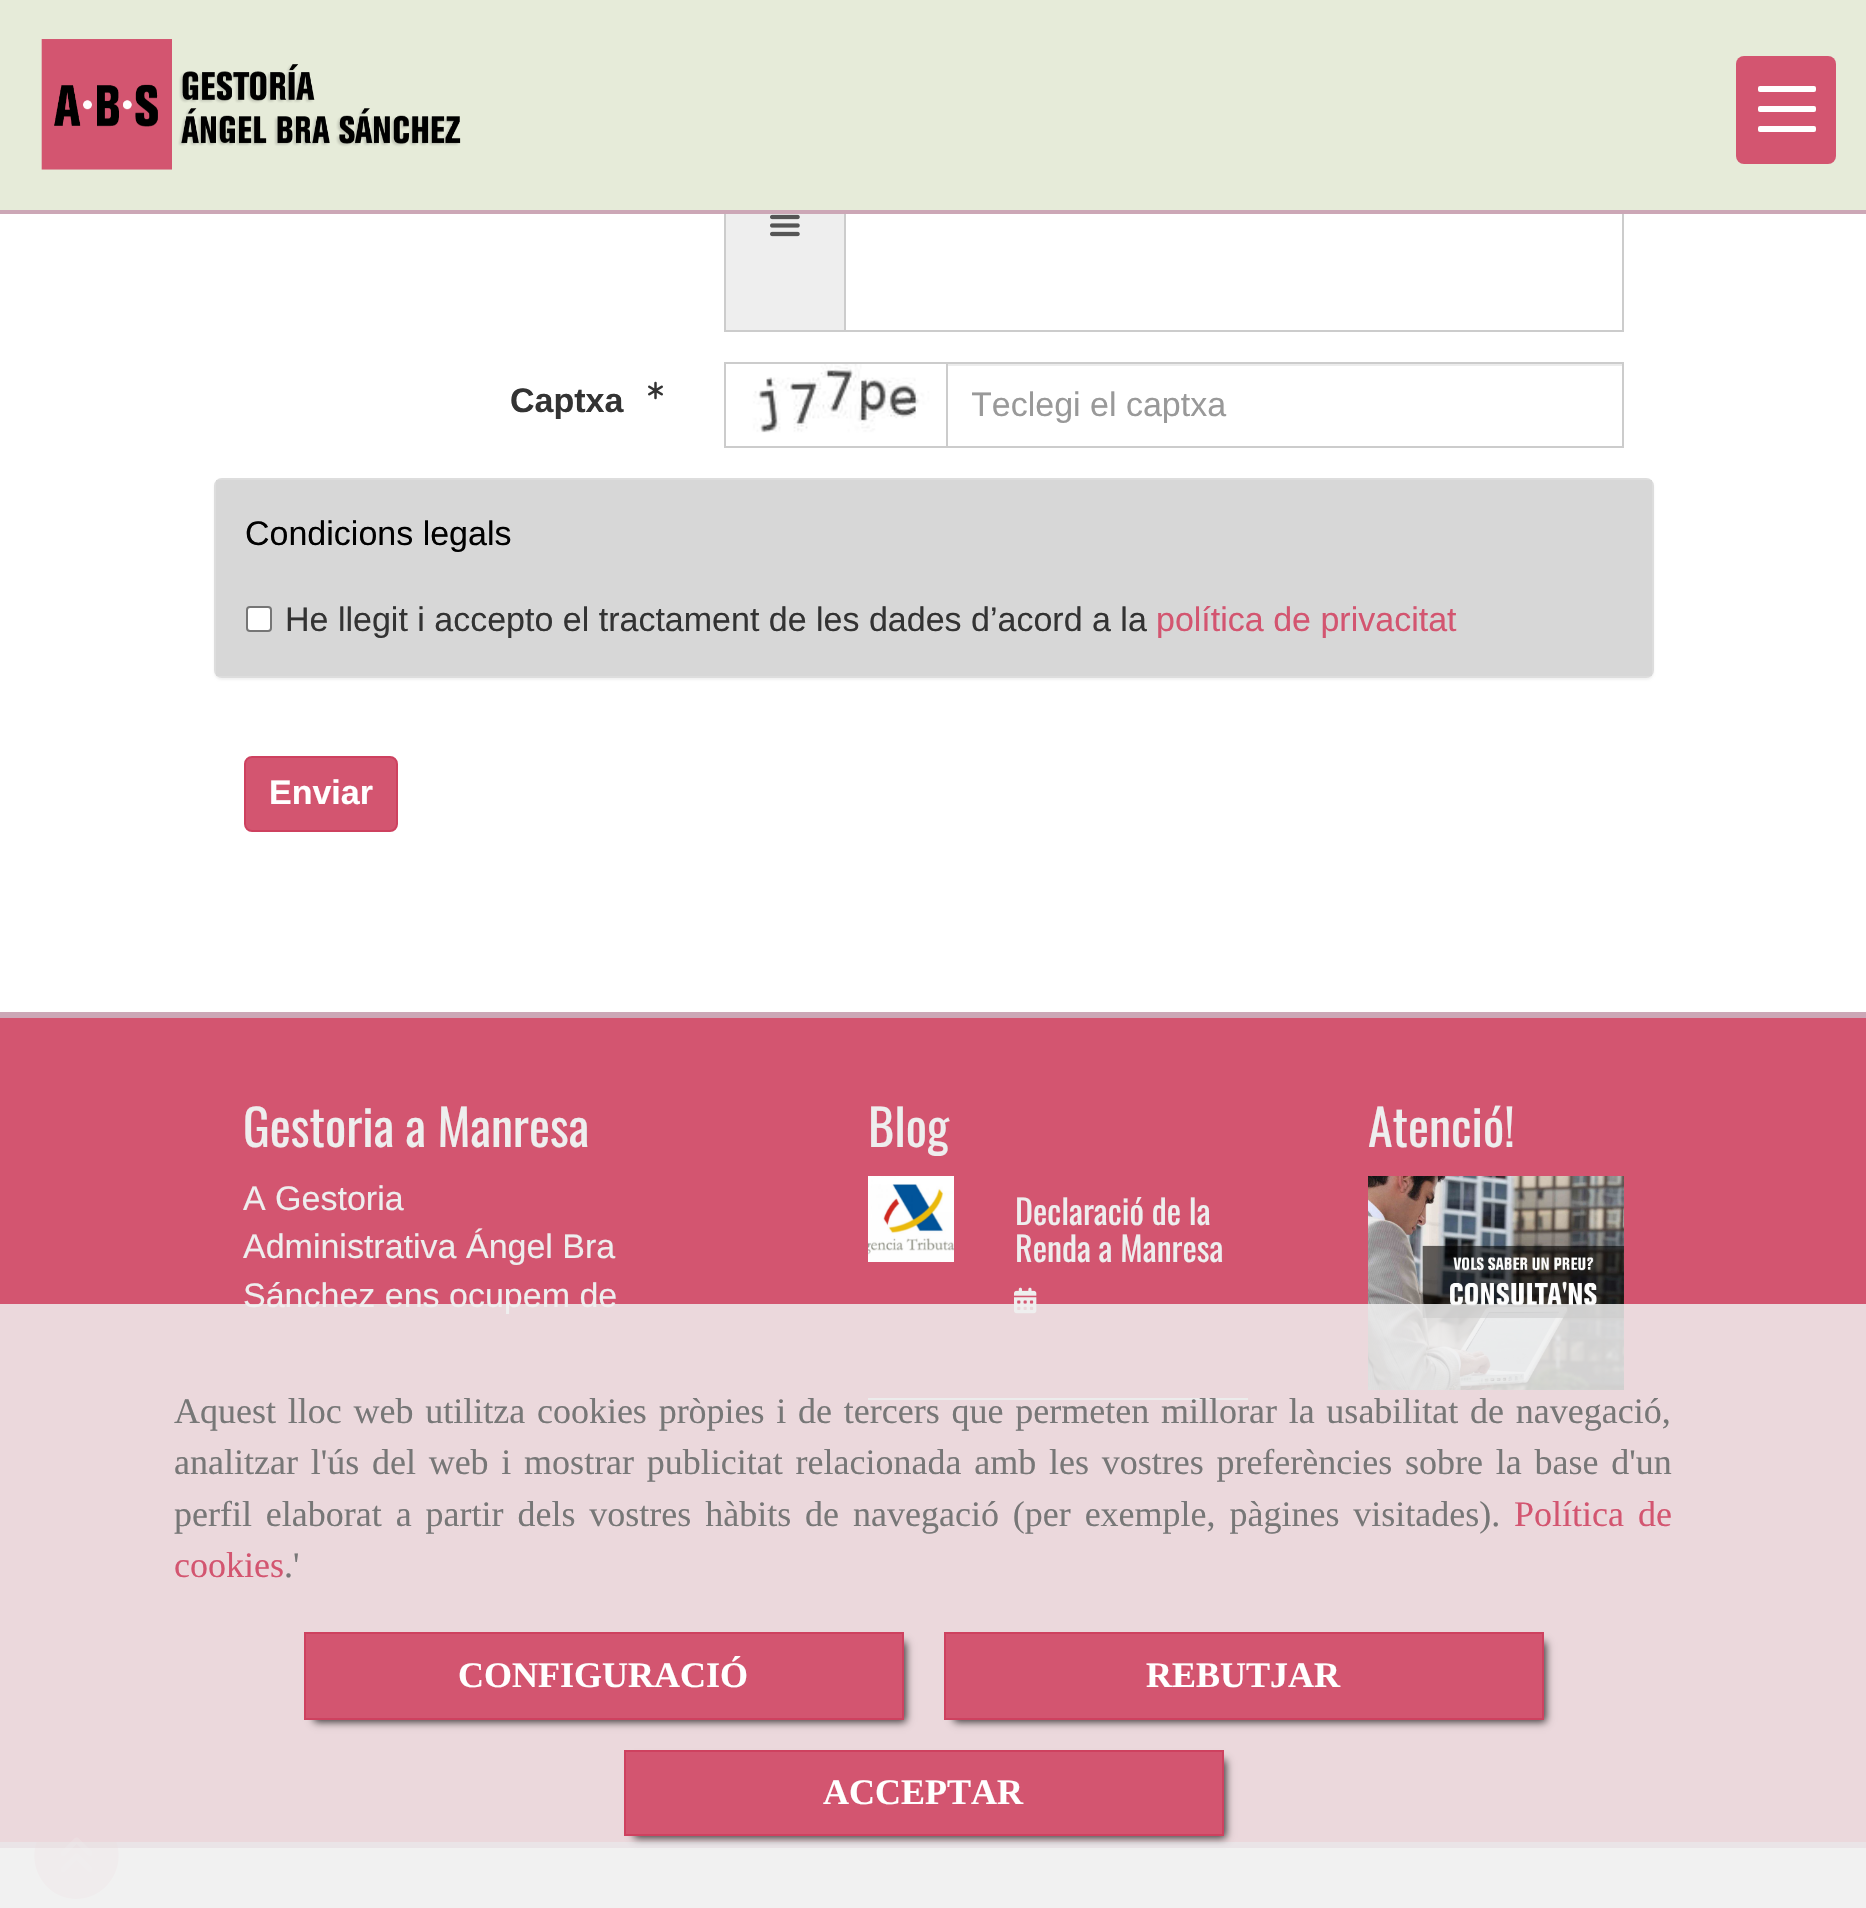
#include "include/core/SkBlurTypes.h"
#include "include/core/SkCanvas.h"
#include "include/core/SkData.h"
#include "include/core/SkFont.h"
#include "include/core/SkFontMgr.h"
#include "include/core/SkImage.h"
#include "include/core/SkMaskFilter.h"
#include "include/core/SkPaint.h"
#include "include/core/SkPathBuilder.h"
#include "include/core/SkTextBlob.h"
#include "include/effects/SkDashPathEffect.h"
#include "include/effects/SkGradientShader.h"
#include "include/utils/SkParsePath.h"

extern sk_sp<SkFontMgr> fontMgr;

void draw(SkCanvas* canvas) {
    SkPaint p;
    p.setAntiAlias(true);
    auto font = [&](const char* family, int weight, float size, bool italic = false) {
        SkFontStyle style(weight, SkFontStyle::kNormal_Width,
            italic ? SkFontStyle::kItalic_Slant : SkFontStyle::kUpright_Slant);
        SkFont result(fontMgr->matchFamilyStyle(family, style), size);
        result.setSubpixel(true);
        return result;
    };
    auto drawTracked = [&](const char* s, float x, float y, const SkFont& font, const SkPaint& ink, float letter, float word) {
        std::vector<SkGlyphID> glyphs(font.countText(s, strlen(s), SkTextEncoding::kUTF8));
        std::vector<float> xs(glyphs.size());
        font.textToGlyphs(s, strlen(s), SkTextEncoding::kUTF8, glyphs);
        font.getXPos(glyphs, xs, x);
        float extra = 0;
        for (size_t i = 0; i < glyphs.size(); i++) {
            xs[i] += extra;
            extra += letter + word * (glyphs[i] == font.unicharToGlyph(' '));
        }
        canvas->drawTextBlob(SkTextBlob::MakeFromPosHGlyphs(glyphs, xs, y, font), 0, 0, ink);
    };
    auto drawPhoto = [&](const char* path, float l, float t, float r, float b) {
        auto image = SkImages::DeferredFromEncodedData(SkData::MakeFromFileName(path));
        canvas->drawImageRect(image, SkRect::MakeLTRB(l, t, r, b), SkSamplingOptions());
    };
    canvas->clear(0xFFFFFFFF);
    p.setStyle(SkPaint::kStroke_Style);
    p.setStrokeWidth(2);
    p.setColor(0xFFCCCCCC);
    canvas->drawRect(SkRect::MakeLTRB(845, 111, 1623, 331), p);
    p.setStyle(SkPaint::kFill_Style);
    p.setColor(0xFFE6EBD9);
    canvas->drawRect(SkRect::MakeLTRB(0, 0, 1866, 210), p);
    drawPhoto("media/1.png", 41, 39, 461, 170);
    p.setColor(0xFFD35570);
    canvas->drawRoundRect(SkRect::MakeLTRB(1736, 56, 1836, 164), 8, 8, p);
    p.setColor(0xFFFFFFFF);
    canvas->drawRoundRect(SkRect::MakeLTRB(1758, 106, 1816, 112), 2, 2, p);
    canvas->drawRoundRect(SkRect::MakeLTRB(1758, 86, 1816, 92), 2, 2, p);
    canvas->drawRoundRect(SkRect::MakeLTRB(1758, 126, 1816, 132), 2, 2, p);
    {
        const struct { float l, t, r, b; SkColor color; } items[] = {
            {0, 210, 1866, 214, 0xFFCCA7B6},
            {726, 214, 844, 330, 0xFFEEEEEE},
            {724, 330, 844, 332, 0xFFCCCCCC},
            {724, 214, 726, 332, 0xFFCCCCCC},
        };
        for (auto [l, t, r, b, color] : items) {
            p.setColor(color);
            canvas->drawRect(SkRect::MakeLTRB(l, t, r, b), p);
        }
    }
    drawPhoto("media/2.png", 770, 214, 800, 237);
    auto font1 = font("Liberation Sans", 700, 34);
    p.setColor(0xFF333333);
    canvas->drawString("Captxa", 510, 412, font1, p);
    drawPhoto("media/3.png", 648, 381, 663, 400);
    {
        const struct { float l, t, r, b; SkColor color; } items[] = {
            {724, 362, 946, 364, 0xFFCCCCCC},
            {724, 446, 946, 448, 0xFFCCCCCC},
            {724, 362, 726, 448, 0xFFCCCCCC},
        };
        for (auto [l, t, r, b, color] : items) {
            p.setColor(color);
            canvas->drawRect(SkRect::MakeLTRB(l, t, r, b), p);
        }
    }
    drawPhoto("media/4.png", 726, 364, 946, 446);
    p.setColor(0xFFECECEC);
    canvas->drawRect(SkRect::MakeLTRB(948, 364, 1622, 366), p);
    p.setStyle(SkPaint::kStroke_Style);
    p.setColor(0xFFCCCCCC);
    canvas->drawRect(SkRect::MakeLTRB(947, 363, 1623, 447), p);
    canvas->save();
    canvas->clipRect(SkRect::MakeLTRB(972, 386, 1598, 426));
    auto font2 = font("Liberation Sans", 400, 34);
    p.setStyle(SkPaint::kFill_Style);
    p.setColor(0xFF999999);
    canvas->drawString("Teclegi el captxa", 971, 416, font2, p);
    canvas->restore();
    p.setColor(0x0D000000);
    p.setMaskFilter(SkMaskFilter::MakeBlur(kNormal_SkBlurStyle, 1));
    canvas->drawRoundRect(SkRect::MakeLTRB(214, 480, 1654, 680), 8, 8, p);
    p.setMaskFilter(nullptr);
    p.setStyle(SkPaint::kStroke_Style);
    p.setColor(0xFFDDDDDD);
    canvas->drawRoundRect(SkRect::MakeLTRB(215, 479, 1653, 677), 7, 7, p);
    p.setStyle(SkPaint::kFill_Style);
    p.setColor(0xFFD7D7D7);
    canvas->drawRect(SkRect::MakeLTRB(216, 480, 1652, 676), p);
    p.setColor(0xFF000000);
    canvas->drawString("Condicions legals", 245, 545, font2, p);
    p.setColor(0xFFFFFFFF);
    canvas->drawRoundRect(SkRect::MakeLTRB(247, 607, 271, 631), 3, 3, p);
    p.setStyle(SkPaint::kStroke_Style);
    p.setColor(0xFF767676);
    canvas->drawRoundRect(SkRect::MakeLTRB(247, 607, 271, 631), 3, 3, p);
    p.setStyle(SkPaint::kFill_Style);
    p.setColor(0xFF333333);
    canvas->drawString("He llegit i accepto el tractament de les dades d’acord a la", 285, 631, font2, p);
    p.setColor(0xFFD35570);
    canvas->drawString("política de privacitat", 1156, 631, font2, p);
    canvas->drawRoundRect(SkRect::MakeLTRB(245, 757, 397, 831), 7, 7, p);
    p.setStyle(SkPaint::kStroke_Style);
    p.setColor(0xFFCE415F);
    canvas->drawRoundRect(SkRect::MakeLTRB(245, 757, 397, 831), 7, 7, p);
    p.setStyle(SkPaint::kFill_Style);
    p.setColor(0xFFFFFFFF);
    canvas->drawString("Enviar", 269, 804, font1, p);
    p.setColor(0xFFD35570);
    canvas->drawRect(SkRect::MakeLTRB(0, 1018, 1866, 1842), p);
    p.setColor(0xFFCCA7B6);
    canvas->drawRect(SkRect::MakeLTRB(0, 1012, 1866, 1018), p);
    auto font3 = font("Oswald", 400, 50);
    p.setColor(0xFFEEEEEE);
    canvas->drawString("Gestoria a Manresa", 243, 1147, font3, p);
    {
        const struct { const char* s; float x, y; } items[] = {
            {"A Gestoria", 243, 1210},
            {"Administrativa Ángel Bra", 243, 1258},
            {"Sánchez ens ocupem de", 243, 1307},
        };
        for (auto [s, x, y] : items) {
            canvas->drawString(s, x, y, font2, p);
        }
    }
    canvas->drawString("Blog", 868, 1147, font3, p);
    drawPhoto("media/5.png", 868, 1176, 954, 1262);
    auto font4 = font("Oswald", 400, 34);
    canvas->drawString("Declaració de la", 1015, 1225, font4, p);
    canvas->drawString("Renda a Manresa", 1015, 1262, font4, p);
    drawPhoto("media/6.png", 1014, 1287, 1037, 1314);
    p.setColor(0xFFDDDDDD);
    canvas->drawRect(SkRect::MakeLTRB(868, 1398, 1248, 1400), p);
    p.setColor(0xFFEEEEEE);
    canvas->drawString("Atenció!", 1368, 1147, font3, p);
    drawPhoto("media/7.png", 1368, 1176, 1624, 1390);
    p.setColor(0xFFCCA7B6);
    canvas->drawRect(SkRect::MakeLTRB(0, 1842, 1866, 1848), p);
    p.setColor(0x33D35570);
    canvas->drawPath(SkPathBuilder().moveTo(76, 1899).cubicTo(117, 1898, 134, 1847, 102, 1822).cubicTo(95, 1817, 86, 1814, 76, 1814).cubicTo(67, 1814, 58, 1817, 51, 1822).cubicTo(19, 1847, 36, 1898, 76, 1899).close().detach(), p);
    drawPhoto("media/8.png", 61, 1837, 92, 1872);
    p.setColor(0xD9EEEEEE);
    canvas->drawRect(SkRect::MakeLTRB(0, 1304, 1866, 1908), p);
    auto font5 = font("Liberation Serif", 400, 36);
    p.setColor(0xFF777777);
    drawTracked("Aquest lloc web utilitza cookies pròpies i de tercers que permeten millorar la usabilitat de navegació,", 174, 1423, font5, p, 0, 2.75f);
    drawTracked("analitzar l'ús del web i mostrar publicitat relacionada amb les vostres preferències sobre la base d'un", 174, 1474, font5, p, 0, 3.75f);
    drawTracked("perfil elaborat a partir dels vostres hàbits de navegació (per exemple, pàgines visitades).", 174, 1526, font5, p, 0, 4.9f);
    p.setColor(0xFFD35570);
    drawTracked("Política de", 1514, 1526, font5, p, 0, 4.9f);
    canvas->drawString("cookies", 174, 1577, font5, p);
    p.setColor(0xFF777777);
    canvas->drawString(".'", 284, 1577, font5, p);
    p.setColor(0xBF000000);
    p.setMaskFilter(SkMaskFilter::MakeBlur(kNormal_SkBlurStyle, 4));
    canvas->drawRect(SkRect::MakeLTRB(314, 1642, 906, 1722), p);
    p.setMaskFilter(nullptr);
    p.setColor(0xFFD35570);
    canvas->drawRect(SkRect::MakeLTRB(305, 1633, 903, 1719), p);
    p.setStyle(SkPaint::kStroke_Style);
    p.setColor(0xFFCE415F);
    canvas->drawRect(SkRect::MakeLTRB(305, 1633, 903, 1719), p);
    auto font6 = font("Liberation Serif", 700, 36);
    p.setStyle(SkPaint::kFill_Style);
    p.setColor(0xFFFFFFFF);
    canvas->drawString("CONFIGURACIÓ", 458, 1687, font6, p);
    p.setColor(0xBF000000);
    p.setMaskFilter(SkMaskFilter::MakeBlur(kNormal_SkBlurStyle, 4));
    canvas->drawRect(SkRect::MakeLTRB(954, 1642, 1546, 1722), p);
    p.setMaskFilter(nullptr);
    p.setColor(0xFFD35570);
    canvas->drawRect(SkRect::MakeLTRB(945, 1633, 1543, 1719), p);
    p.setStyle(SkPaint::kStroke_Style);
    p.setColor(0xFFCE415F);
    canvas->drawRect(SkRect::MakeLTRB(945, 1633, 1543, 1719), p);
    p.setStyle(SkPaint::kFill_Style);
    p.setColor(0xFFFFFFFF);
    canvas->drawString("REBUTJAR", 1146, 1687, font6, p);
    p.setColor(0xBF000000);
    p.setMaskFilter(SkMaskFilter::MakeBlur(kNormal_SkBlurStyle, 4));
    canvas->drawRect(SkRect::MakeLTRB(634, 1760, 1226, 1838), p);
    p.setMaskFilter(nullptr);
    p.setColor(0xFFD35570);
    canvas->drawRect(SkRect::MakeLTRB(625, 1751, 1223, 1835), p);
    p.setStyle(SkPaint::kStroke_Style);
    p.setColor(0xFFCE415F);
    canvas->drawRect(SkRect::MakeLTRB(625, 1751, 1223, 1835), p);
    p.setStyle(SkPaint::kFill_Style);
    p.setColor(0xFFFFFFFF);
    canvas->drawString("ACCEPTAR", 823, 1804, font6, p);
}
